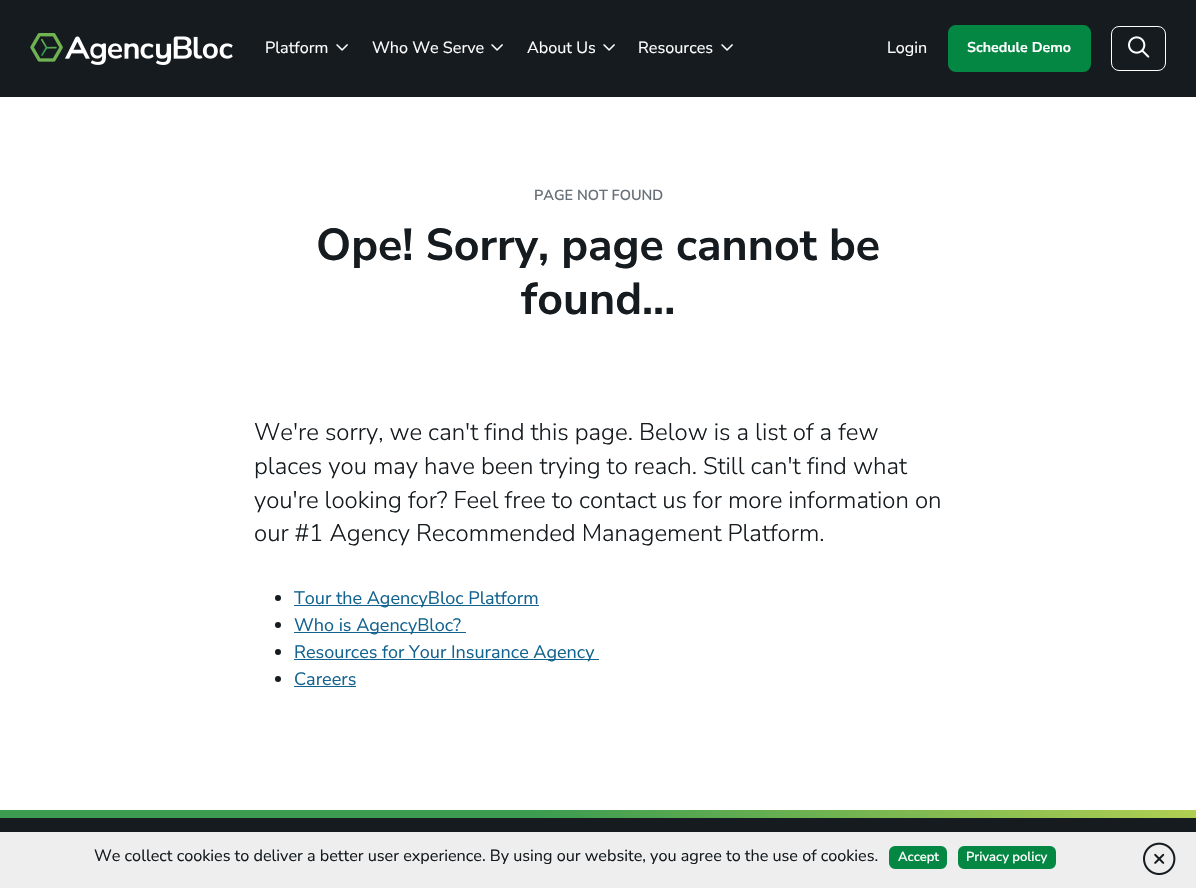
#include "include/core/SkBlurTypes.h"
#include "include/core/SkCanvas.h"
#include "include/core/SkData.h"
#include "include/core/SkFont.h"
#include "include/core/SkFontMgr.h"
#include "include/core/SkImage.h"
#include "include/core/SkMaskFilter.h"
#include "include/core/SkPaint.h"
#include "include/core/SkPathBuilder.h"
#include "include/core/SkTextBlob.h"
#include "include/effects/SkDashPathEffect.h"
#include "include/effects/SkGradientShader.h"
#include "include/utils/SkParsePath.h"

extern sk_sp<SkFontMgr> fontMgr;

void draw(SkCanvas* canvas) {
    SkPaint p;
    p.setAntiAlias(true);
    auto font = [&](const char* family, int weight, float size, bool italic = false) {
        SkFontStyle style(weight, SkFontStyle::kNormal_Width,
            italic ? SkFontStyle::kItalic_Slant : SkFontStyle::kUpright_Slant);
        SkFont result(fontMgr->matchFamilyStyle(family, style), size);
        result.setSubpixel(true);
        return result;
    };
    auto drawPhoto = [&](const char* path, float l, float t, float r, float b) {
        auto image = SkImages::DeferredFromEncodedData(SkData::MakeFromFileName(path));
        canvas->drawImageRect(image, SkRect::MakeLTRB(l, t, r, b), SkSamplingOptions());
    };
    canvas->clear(0xFFFFFFFF);
    p.setColor(0xFF151B1F);
    canvas->drawRect(SkRect::MakeLTRB(0, 0, 1196, 97), p);
    drawPhoto("media/1.png", 30, 33, 233, 65);
    auto font1 = font("Nunito Sans", 400, 16.2f);
    p.setColor(0xFFFFFFFF);
    canvas->drawString("Platform", 265, 53, font1, p);
    drawPhoto("media/2.png", 336, 44, 348, 51);
    canvas->drawString("Who We Serve", 372, 53, font1, p);
    drawPhoto("media/2.png", 491, 44, 503, 51);
    canvas->drawString("About Us", 527, 53, font1, p);
    drawPhoto("media/2.png", 603, 44, 615, 51);
    canvas->drawString("Resources", 638, 53, font1, p);
    drawPhoto("media/2.png", 721, 44, 733, 51);
    canvas->drawString("Login", 887, 53, font1, p);
    p.setColor(0xFF058744);
    canvas->drawRoundRect(SkRect::MakeLTRB(949, 26, 1090, 71), 7, 7, p);
    p.setStyle(SkPaint::kStroke_Style);
    p.setStrokeWidth(2);
    canvas->drawRoundRect(SkRect::MakeLTRB(949, 26, 1090, 71), 7, 7, p);
    auto font2 = font("Nunito Sans", 700, 14.25f);
    p.setStyle(SkPaint::kFill_Style);
    p.setColor(0xFFFFFFFF);
    canvas->drawString("Schedule Demo", 967, 52, font2, p);
    p.setStyle(SkPaint::kStroke_Style);
    p.setStrokeWidth(1);
    canvas->drawRoundRect(SkRect::MakeLTRB(1111.5f, 26.5f, 1165.5f, 70.5f), 7.5f, 7.5f, p);
    drawPhoto("media/3.png", 1128, 36, 1150, 58);
    auto font3 = font("Nunito Sans", 600, 14.5f);
    p.setStyle(SkPaint::kFill_Style);
    p.setColor(0xFF677078);
    canvas->drawString("PAGE NOT FOUND", 534, 200, font3, p);
    auto font4 = font("Nunito Sans", 700, 44.75f);
    p.setColor(0xFF151B1F);
    canvas->drawString("Ope! Sorry, page cannot be", 316, 260, font4, p);
    canvas->drawString("found...", 521, 314, font4, p);
    auto font5 = font("Nunito Sans", 300, 24);
    {
        const struct { const char* s; float x, y; } items[] = {
            {"We're sorry, we can't find this page. Below is a list of a few", 254, 440},
            {"places you may have been trying to reach. Still can't find what", 254, 474},
            {"you're looking for? Feel free to contact us for more information on", 254, 508},
            {"our #1 Agency Recommended Management Platform.", 254, 541},
        };
        for (auto [s, x, y] : items) {
            canvas->drawString(s, x, y, font5, p);
        }
    }
    canvas->drawCircle(278, 598, 3, p);
    p.setColor(0xFF136390);
    canvas->drawRect(SkRect::MakeLTRB(294, 605, 539, 606), p);
    auto font6 = font("Nunito Sans", 400, 18);
    canvas->drawString("Tour the AgencyBloc Platform", 294, 604, font6, p);
    p.setColor(0xFF151B1F);
    canvas->drawCircle(278, 625, 3, p);
    p.setColor(0xFF136390);
    canvas->drawRect(SkRect::MakeLTRB(294, 632, 466, 633), p);
    canvas->drawString("Who is AgencyBloc?", 294, 631, font6, p);
    p.setColor(0xFF151B1F);
    canvas->drawCircle(278, 652, 3, p);
    p.setColor(0xFF136390);
    canvas->drawRect(SkRect::MakeLTRB(294, 659, 599, 660), p);
    canvas->drawString("Resources for Your Insurance Agency", 294, 658, font6, p);
    p.setColor(0xFF151B1F);
    canvas->drawCircle(278, 679, 3, p);
    p.setColor(0xFF136390);
    canvas->drawString("Careers", 294, 685, font6, p);
    canvas->drawRect(SkRect::MakeLTRB(294, 686, 356, 687), p);
    p.setColor(0xFF151B1F);
    canvas->drawRect(SkRect::MakeLTRB(0, 818, 1196, 832), p);
    {
        const SkColor colors[] = {0xFF3C9C50, 0xFF3C9C50, 0xFFB1CF52};
        const float stops[] = {0, 0.45f, 1};
        const SkPoint ends[] = {{447, 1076}, {749, 552}};
        p.setShader(SkGradientShader::MakeLinear(ends, colors, stops, 3, SkTileMode::kClamp));
        p.setAlpha(255);
    }
    canvas->drawRect(SkRect::MakeLTRB(0, 810, 1196, 818), p);
    p.setShader(nullptr);
    p.setColor(0xFFEEEEEE);
    canvas->drawRect(SkRect::MakeLTRB(0, 832, 1196, 888), p);
    p.setColor(0xFF151B1F);
    canvas->drawString("We collect cookies to deliver a better user experience. By using our website, you agree to the use of cookies.", 94, 861, font1, p);
    p.setColor(0xFF058744);
    canvas->drawRoundRect(SkRect::MakeLTRB(890, 847, 946, 868), 5, 5, p);
    p.setStyle(SkPaint::kStroke_Style);
    p.setStrokeWidth(2);
    canvas->drawRoundRect(SkRect::MakeLTRB(890, 847, 946, 868), 5, 5, p);
    auto font7 = font("Nunito Sans", 600, 13);
    p.setStyle(SkPaint::kFill_Style);
    p.setColor(0xFFFFFFFF);
    canvas->drawString("Accept", 898, 861, font7, p);
    p.setColor(0xFF058744);
    canvas->drawRoundRect(SkRect::MakeLTRB(959, 847, 1055, 868), 5, 5, p);
    p.setStyle(SkPaint::kStroke_Style);
    canvas->drawRoundRect(SkRect::MakeLTRB(959, 847, 1055, 868), 5, 5, p);
    p.setStyle(SkPaint::kFill_Style);
    p.setColor(0xFFFFFFFF);
    canvas->drawString("Privacy policy", 966, 861, font7, p);
    drawPhoto("media/4.png", 1143, 842, 1176, 876);
}
